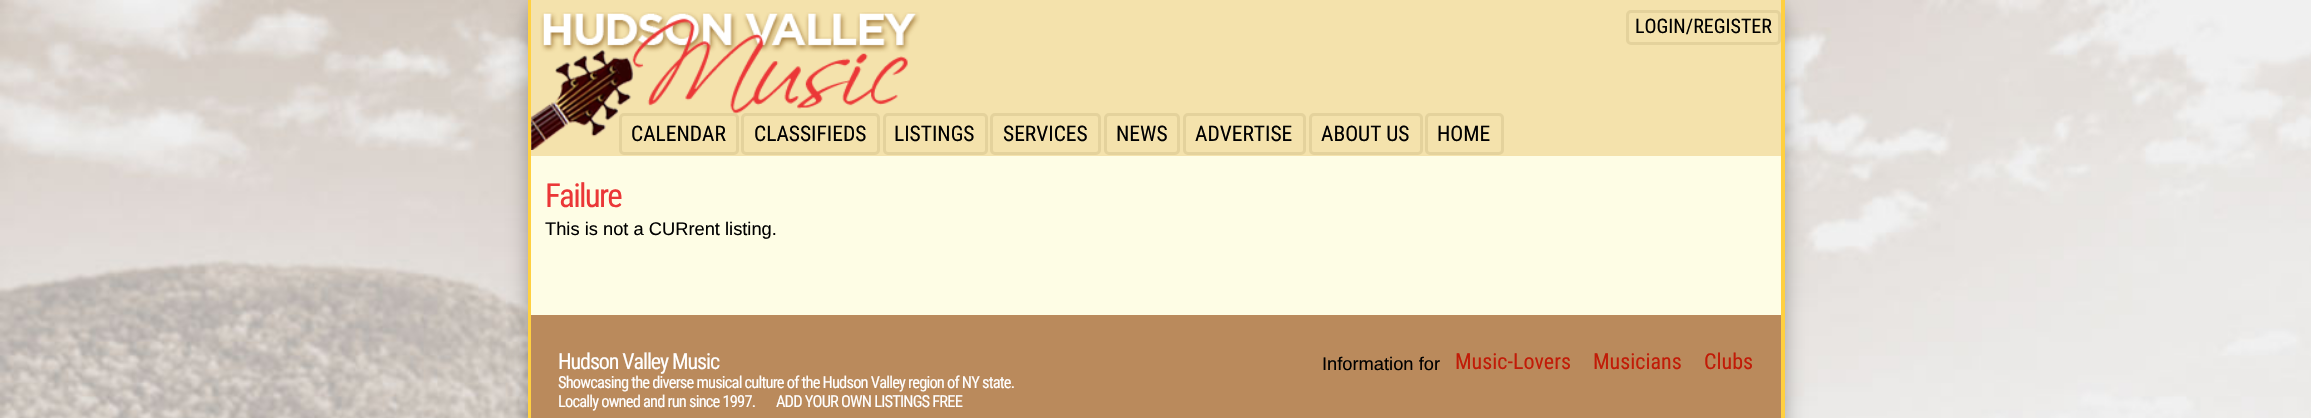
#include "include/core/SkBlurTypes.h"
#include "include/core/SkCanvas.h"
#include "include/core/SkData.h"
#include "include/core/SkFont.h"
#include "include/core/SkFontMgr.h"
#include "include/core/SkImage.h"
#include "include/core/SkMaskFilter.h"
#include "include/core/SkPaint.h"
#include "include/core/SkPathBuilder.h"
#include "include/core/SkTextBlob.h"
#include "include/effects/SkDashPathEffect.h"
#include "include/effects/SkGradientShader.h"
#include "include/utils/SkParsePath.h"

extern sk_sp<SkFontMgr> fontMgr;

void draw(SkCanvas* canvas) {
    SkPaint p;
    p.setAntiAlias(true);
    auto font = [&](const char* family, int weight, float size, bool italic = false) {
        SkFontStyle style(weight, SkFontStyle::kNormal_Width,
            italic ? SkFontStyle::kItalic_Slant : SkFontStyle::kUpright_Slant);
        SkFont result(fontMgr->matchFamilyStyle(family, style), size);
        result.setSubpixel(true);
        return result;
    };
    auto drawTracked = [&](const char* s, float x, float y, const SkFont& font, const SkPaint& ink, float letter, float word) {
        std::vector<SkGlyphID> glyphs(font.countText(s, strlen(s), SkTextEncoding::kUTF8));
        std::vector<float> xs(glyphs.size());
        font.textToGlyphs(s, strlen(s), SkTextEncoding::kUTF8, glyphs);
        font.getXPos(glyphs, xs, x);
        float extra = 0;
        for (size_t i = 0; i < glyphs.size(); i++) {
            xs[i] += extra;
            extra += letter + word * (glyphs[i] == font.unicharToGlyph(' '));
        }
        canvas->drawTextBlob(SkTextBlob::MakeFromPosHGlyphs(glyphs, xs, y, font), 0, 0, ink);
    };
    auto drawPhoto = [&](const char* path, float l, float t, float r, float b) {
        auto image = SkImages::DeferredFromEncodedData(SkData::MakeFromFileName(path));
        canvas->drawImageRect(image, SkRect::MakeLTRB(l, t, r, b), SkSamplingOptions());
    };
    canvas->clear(0xFFFFFFFF);
    drawPhoto("media/1.png", 0, 0, 2311, 418);
    p.setColor(0x4D000000);
    p.setMaskFilter(SkMaskFilter::MakeBlur(kNormal_SkBlurStyle, 10));
    canvas->drawRoundRect(SkRect::MakeLTRB(528, 0, 1785, 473), 25, 25, p);
    p.setMaskFilter(nullptr);
    {
        const struct { float l, t, r, b; SkColor color; } items[] = {
            {1781, 0, 1785, 418, 0xFFFFD040},
            {528, 0, 531, 418, 0xFFFFD040},
            {531, 0, 1781, 156, 0xFFF4E2AC},
        };
        for (auto [l, t, r, b, color] : items) {
            p.setColor(color);
            canvas->drawRect(SkRect::MakeLTRB(l, t, r, b), p);
        }
    }
    drawPhoto("media/2.png", 531, 12, 920, 150);
    p.setStyle(SkPaint::kStroke_Style);
    p.setStrokeWidth(3);
    p.setColor(0xFFE4D29C);
    canvas->drawRoundRect(SkRect::MakeLTRB(1627.5f, 11.5f, 1779.5f, 43.5f), 3.5f, 3.5f, p);
    auto font1 = font("Roboto Condensed", 400, 20);
    p.setStyle(SkPaint::kFill_Style);
    p.setColor(0xFF000000);
    canvas->drawString("LOGIN/REGISTER", 1635, 33, font1, p);
    p.setStyle(SkPaint::kStroke_Style);
    p.setColor(0xFFE4D29C);
    canvas->drawRoundRect(SkRect::MakeLTRB(620.5f, 114.5f, 737.5f, 153.5f), 3.5f, 3.5f, p);
    auto font2 = font("Roboto Condensed", 400, 21.5f);
    p.setStyle(SkPaint::kFill_Style);
    p.setColor(0xFF000000);
    canvas->drawString("CALENDAR", 631, 141, font2, p);
    p.setStyle(SkPaint::kStroke_Style);
    p.setColor(0xFFE4D29C);
    canvas->drawRoundRect(SkRect::MakeLTRB(742.5f, 114.5f, 878.5f, 153.5f), 3.5f, 3.5f, p);
    p.setStyle(SkPaint::kFill_Style);
    p.setColor(0xFF000000);
    canvas->drawString("CLASSIFIEDS", 754, 141, font2, p);
    p.setStyle(SkPaint::kStroke_Style);
    p.setColor(0xFFE4D29C);
    canvas->drawRoundRect(SkRect::MakeLTRB(884.5f, 114.5f, 986.5f, 153.5f), 3.5f, 3.5f, p);
    p.setStyle(SkPaint::kFill_Style);
    p.setColor(0xFF000000);
    canvas->drawString("LISTINGS", 894, 141, font2, p);
    p.setStyle(SkPaint::kStroke_Style);
    p.setColor(0xFFE4D29C);
    canvas->drawRoundRect(SkRect::MakeLTRB(991.5f, 114.5f, 1099.5f, 153.5f), 3.5f, 3.5f, p);
    p.setStyle(SkPaint::kFill_Style);
    p.setColor(0xFF000000);
    canvas->drawString("SERVICES", 1003, 141, font2, p);
    p.setStyle(SkPaint::kStroke_Style);
    p.setColor(0xFFE4D29C);
    canvas->drawRoundRect(SkRect::MakeLTRB(1105.5f, 114.5f, 1178.5f, 153.5f), 3.5f, 3.5f, p);
    p.setStyle(SkPaint::kFill_Style);
    p.setColor(0xFF000000);
    canvas->drawString("NEWS", 1116, 141, font2, p);
    p.setStyle(SkPaint::kStroke_Style);
    p.setColor(0xFFE4D29C);
    canvas->drawRoundRect(SkRect::MakeLTRB(1184.5f, 114.5f, 1304.5f, 153.5f), 3.5f, 3.5f, p);
    p.setStyle(SkPaint::kFill_Style);
    p.setColor(0xFF000000);
    canvas->drawString("ADVERTISE", 1195, 141, font2, p);
    p.setStyle(SkPaint::kStroke_Style);
    p.setColor(0xFFE4D29C);
    canvas->drawRoundRect(SkRect::MakeLTRB(1310.5f, 114.5f, 1421.5f, 153.5f), 3.5f, 3.5f, p);
    p.setStyle(SkPaint::kFill_Style);
    p.setColor(0xFF000000);
    canvas->drawString("ABOUT US", 1321, 141, font2, p);
    p.setStyle(SkPaint::kStroke_Style);
    p.setColor(0xFFE4D29C);
    canvas->drawRoundRect(SkRect::MakeLTRB(1426.5f, 114.5f, 1502.5f, 153.5f), 3.5f, 3.5f, p);
    p.setStyle(SkPaint::kFill_Style);
    p.setColor(0xFF000000);
    canvas->drawString("HOME", 1437, 141, font2, p);
    p.setColor(0xFFFEFDE5);
    canvas->drawRect(SkRect::MakeLTRB(531, 156, 1781, 315), p);
    auto font3 = font("Roboto Condensed", 400, 33);
    p.setColor(0xFFEB3737);
    drawTracked("Failure", 545, 207, font3, p, -1.75f, 0);
    auto font4 = font("Liberation Sans", 400, 18.3f);
    p.setColor(0xFF000000);
    canvas->drawString("This is not a CURrent listing.", 545, 235, font4, p);
    p.setColor(0xFFBA8A5C);
    canvas->drawRect(SkRect::MakeLTRB(531, 315, 1781, 418), p);
    auto font5 = font("Roboto Condensed", 400, 22);
    p.setColor(0xFFFFFFFF);
    drawTracked("Hudson Valley Music", 558, 369, font5, p, -1.1f, 0);
    auto font6 = font("Roboto Condensed", 400, 16.5f);
    drawTracked("Showcasing the diverse musical culture of the Hudson Valley region of NY state.", 558, 388, font6, p, -0.83f, 0);
    drawTracked("Locally owned and run since 1997.       ADD YOUR OWN LISTINGS FREE", 558, 407, font6, p, -0.83f, 0);
    p.setColor(0xFF000000);
    canvas->drawString("Information for", 1322, 370, font4, p);
    p.setColor(0xFFC11B07);
    {
        const struct { const char* s; float x, y; } items[] = {
            {"Music-Lovers", 1455, 369},
            {"Musicians", 1593, 369},
            {"Clubs", 1704, 369},
        };
        for (auto [s, x, y] : items) {
            canvas->drawString(s, x, y, font5, p);
        }
    }
}
